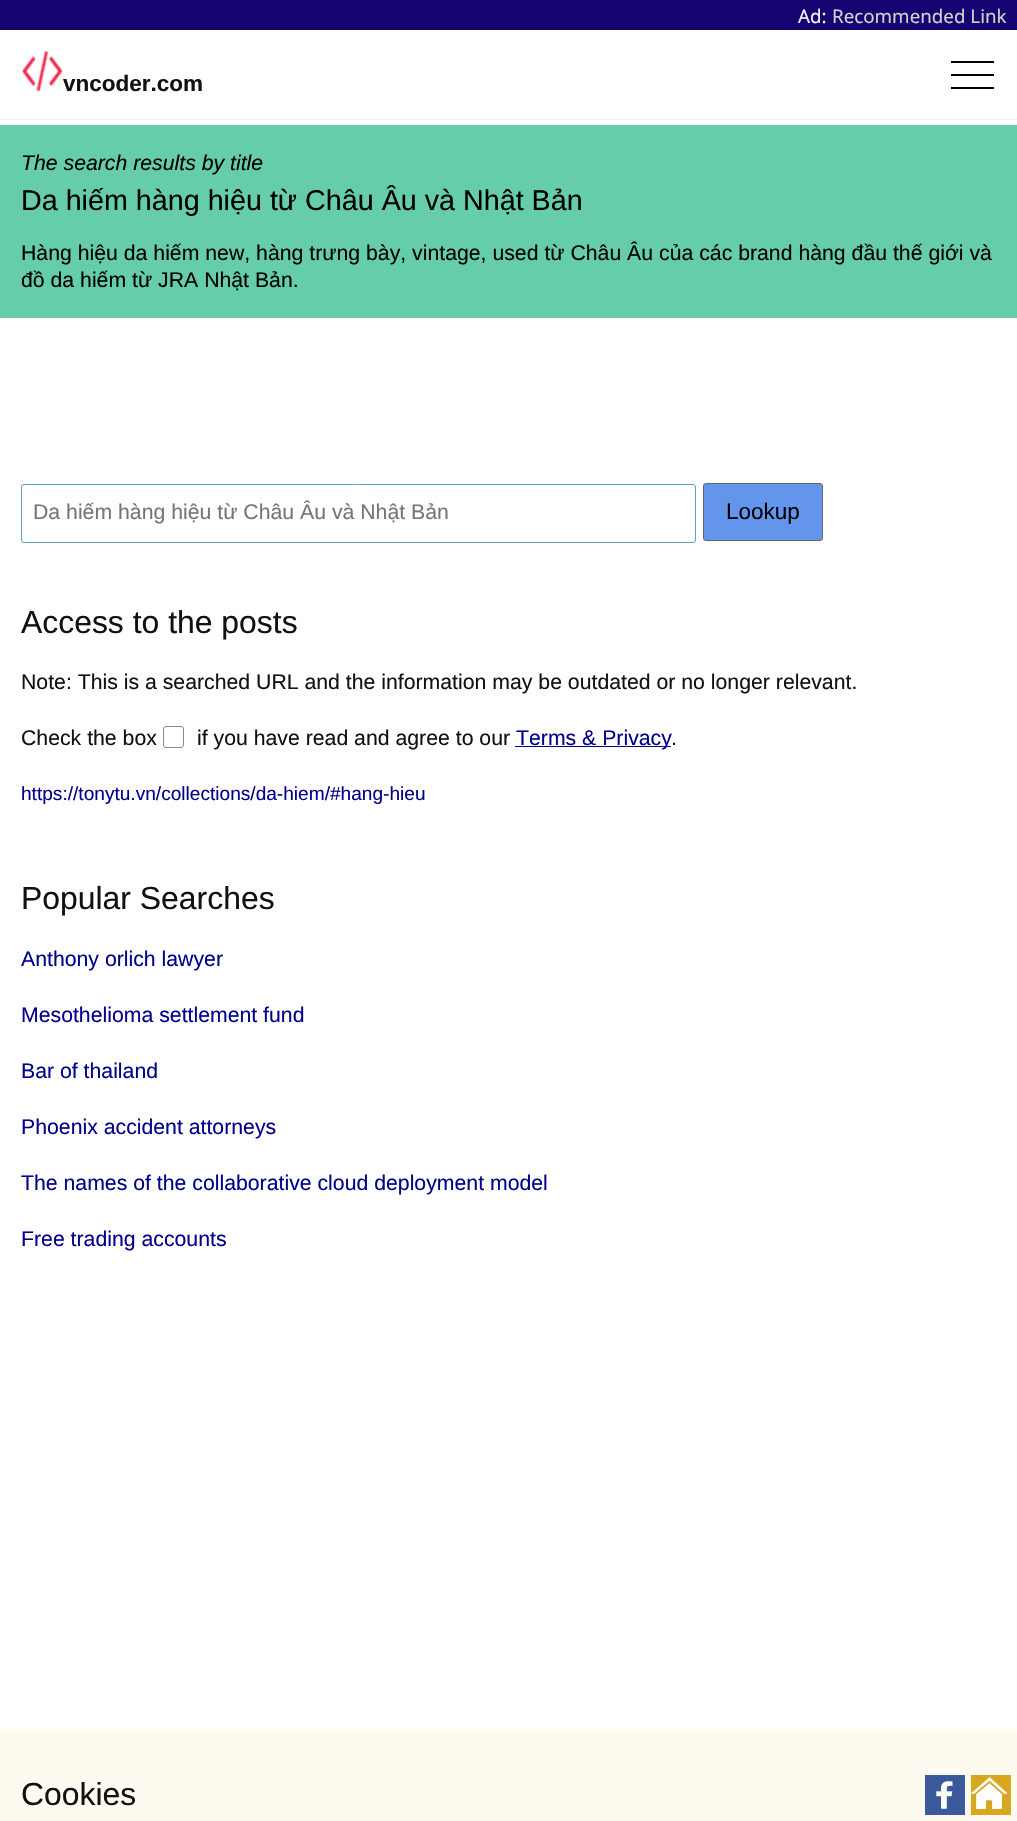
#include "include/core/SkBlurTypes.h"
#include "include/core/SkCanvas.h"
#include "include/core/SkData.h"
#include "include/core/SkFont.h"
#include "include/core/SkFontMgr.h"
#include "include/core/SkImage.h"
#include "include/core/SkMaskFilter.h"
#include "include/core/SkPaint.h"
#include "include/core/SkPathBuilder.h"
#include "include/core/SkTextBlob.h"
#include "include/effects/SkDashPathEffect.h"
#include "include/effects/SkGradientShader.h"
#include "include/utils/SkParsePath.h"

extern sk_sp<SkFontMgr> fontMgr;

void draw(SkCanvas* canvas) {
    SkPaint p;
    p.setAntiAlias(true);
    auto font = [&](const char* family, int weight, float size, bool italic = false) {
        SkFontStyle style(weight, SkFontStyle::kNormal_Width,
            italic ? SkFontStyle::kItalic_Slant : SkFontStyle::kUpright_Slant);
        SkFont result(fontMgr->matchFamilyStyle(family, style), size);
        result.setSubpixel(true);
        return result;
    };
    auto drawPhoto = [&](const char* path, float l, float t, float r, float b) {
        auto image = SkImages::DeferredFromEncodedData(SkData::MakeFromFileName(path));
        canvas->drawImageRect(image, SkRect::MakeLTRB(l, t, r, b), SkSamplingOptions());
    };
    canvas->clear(0xFFFFFFFF);
    p.setColor(0xFF170272);
    canvas->drawRect(SkRect::MakeLTRB(0, 0, 1017, 30), p);
    auto font1 = font("Noto Sans", 400, 18.75f);
    p.setColor(0xFFF5F5F5);
    canvas->drawString("Ad:", 798, 23, font1, p);
    p.setColor(0xFFD3D3D3);
    canvas->drawString("Recommended Link", 832, 23, font1, p);
    p.setColor(0xFFEEEEEE);
    canvas->drawRect(SkRect::MakeLTRB(0, 119, 1017, 120), p);
    drawPhoto("media/1.png", 22, 51, 63, 92);
    auto font2 = font("Liberation Sans", 700, 22.5f);
    p.setColor(0xFF111111);
    canvas->drawString("vncoder.com", 63, 91, font2, p);
    p.setColor(0xFF000000);
    canvas->drawPath(SkPathBuilder().moveTo(951, 61).lineTo(951, 63).lineTo(994, 63).lineTo(994, 61).close().moveTo(951, 74).lineTo(951, 76).lineTo(994, 76).lineTo(994, 74).close().moveTo(951, 87).lineTo(951, 89).lineTo(994, 89).lineTo(994, 87).close().detach(), p);
    p.setColor(0xFF66CDAA);
    canvas->drawRect(SkRect::MakeLTRB(0, 125, 1017, 318), p);
    auto font3 = font("Liberation Sans", 400, 21.25f, true);
    p.setColor(0xFF000000);
    canvas->drawString("The search results by title", 21, 170, font3, p);
    auto font4 = font("Liberation Sans", 400, 28.7f);
    canvas->drawString("Da hiếm hàng hiệu từ Châu Âu và Nhật Bản", 21, 210, font4, p);
    auto font5 = font("Liberation Sans", 400, 21.25f);
    canvas->drawString("Hàng hiệu da hiếm new, hàng trưng bày, vintage, used từ Châu Âu của các brand hàng đầu thế giới và", 21, 260, font5, p);
    canvas->drawString("đồ da hiếm từ JRA Nhật Bản.", 21, 287, font5, p);
    p.setStyle(SkPaint::kStroke_Style);
    p.setStrokeWidth(1);
    p.setColor(0xFF5A9FC8);
    canvas->drawRoundRect(SkRect::MakeLTRB(21.5f, 484.5f, 695.5f, 542.5f), 2.5f, 2.5f, p);
    p.setStyle(SkPaint::kFill_Style);
    p.setColor(0xFF757575);
    canvas->drawString("Da hiếm hàng hiệu từ Châu Âu và Nhật Bản", 33, 519, font5, p);
    p.setColor(0xFF6495ED);
    canvas->drawRoundRect(SkRect::MakeLTRB(703.5f, 483.5f, 822.5f, 540.5f), 2.5f, 2.5f, p);
    p.setStyle(SkPaint::kStroke_Style);
    p.setColor(0xFF666666);
    canvas->drawRoundRect(SkRect::MakeLTRB(703.5f, 483.5f, 822.5f, 540.5f), 2.5f, 2.5f, p);
    auto font6 = font("Liberation Sans", 400, 22.5f);
    p.setStyle(SkPaint::kFill_Style);
    p.setColor(0xFF000000);
    canvas->drawString("Lookup", 726, 519, font6, p);
    auto font7 = font("Liberation Sans", 400, 31.9f);
    p.setColor(0xFF111111);
    canvas->drawString("Access to the posts", 21, 633, font7, p);
    canvas->drawString("Note: This is a searched URL and the information may be outdated or no longer relevant.", 21, 689, font5, p);
    canvas->drawString("Check the box", 21, 745, font5, p);
    p.setStyle(SkPaint::kStroke_Style);
    p.setColor(0xFF888888);
    canvas->drawRoundRect(SkRect::MakeLTRB(163.5f, 726.5f, 183.5f, 747.5f), 2.5f, 2.5f, p);
    p.setStyle(SkPaint::kFill_Style);
    p.setColor(0xFF111111);
    canvas->drawString("if you have read and agree to our", 197, 745, font5, p);
    p.setColor(0xFF00008B);
    canvas->drawRect(SkRect::MakeLTRB(515, 746, 671, 747), p);
    canvas->drawString("Terms & Privacy", 516, 745, font5, p);
    p.setColor(0xFF111111);
    canvas->drawString(".", 671, 745, font5, p);
    auto font8 = font("Liberation Sans", 400, 19.1f);
    p.setColor(0xFF00008B);
    canvas->drawString("https://tonytu.vn/collections/da-hiem/#hang-hieu", 21, 800, font8, p);
    p.setColor(0xFF111111);
    canvas->drawString("Popular Searches", 21, 909, font7, p);
    p.setColor(0xFF00008B);
    {
        const struct { const char* s; float x, y; } items[] = {
            {"Anthony orlich lawyer", 21, 966},
            {"Mesothelioma settlement fund", 21, 1022},
            {"Bar of thailand", 21, 1078},
            {"Phoenix accident attorneys", 21, 1134},
            {"The names of the collaborative cloud deployment model", 21, 1190},
            {"Free trading accounts", 21, 1246},
        };
        for (auto [s, x, y] : items) {
            canvas->drawString(s, x, y, font5, p);
        }
    }
    p.setColor(0xFFFFFAF0);
    canvas->drawRect(SkRect::MakeLTRB(0, 1729, 1017, 1821), p);
    p.setColor(0xFF111111);
    canvas->drawString("Cookies", 21, 1805, font7, p);
    p.setColor(0xFF3B5998);
    canvas->drawRect(SkRect::MakeLTRB(925, 1775, 965, 1815), p);
    p.setColor(0xFFDAA520);
    canvas->drawRect(SkRect::MakeLTRB(971, 1775, 1011, 1815), p);
    drawPhoto("media/2.png", 936, 1781, 953, 1809);
    drawPhoto("media/3.png", 971, 1777, 1008, 1809);
}
